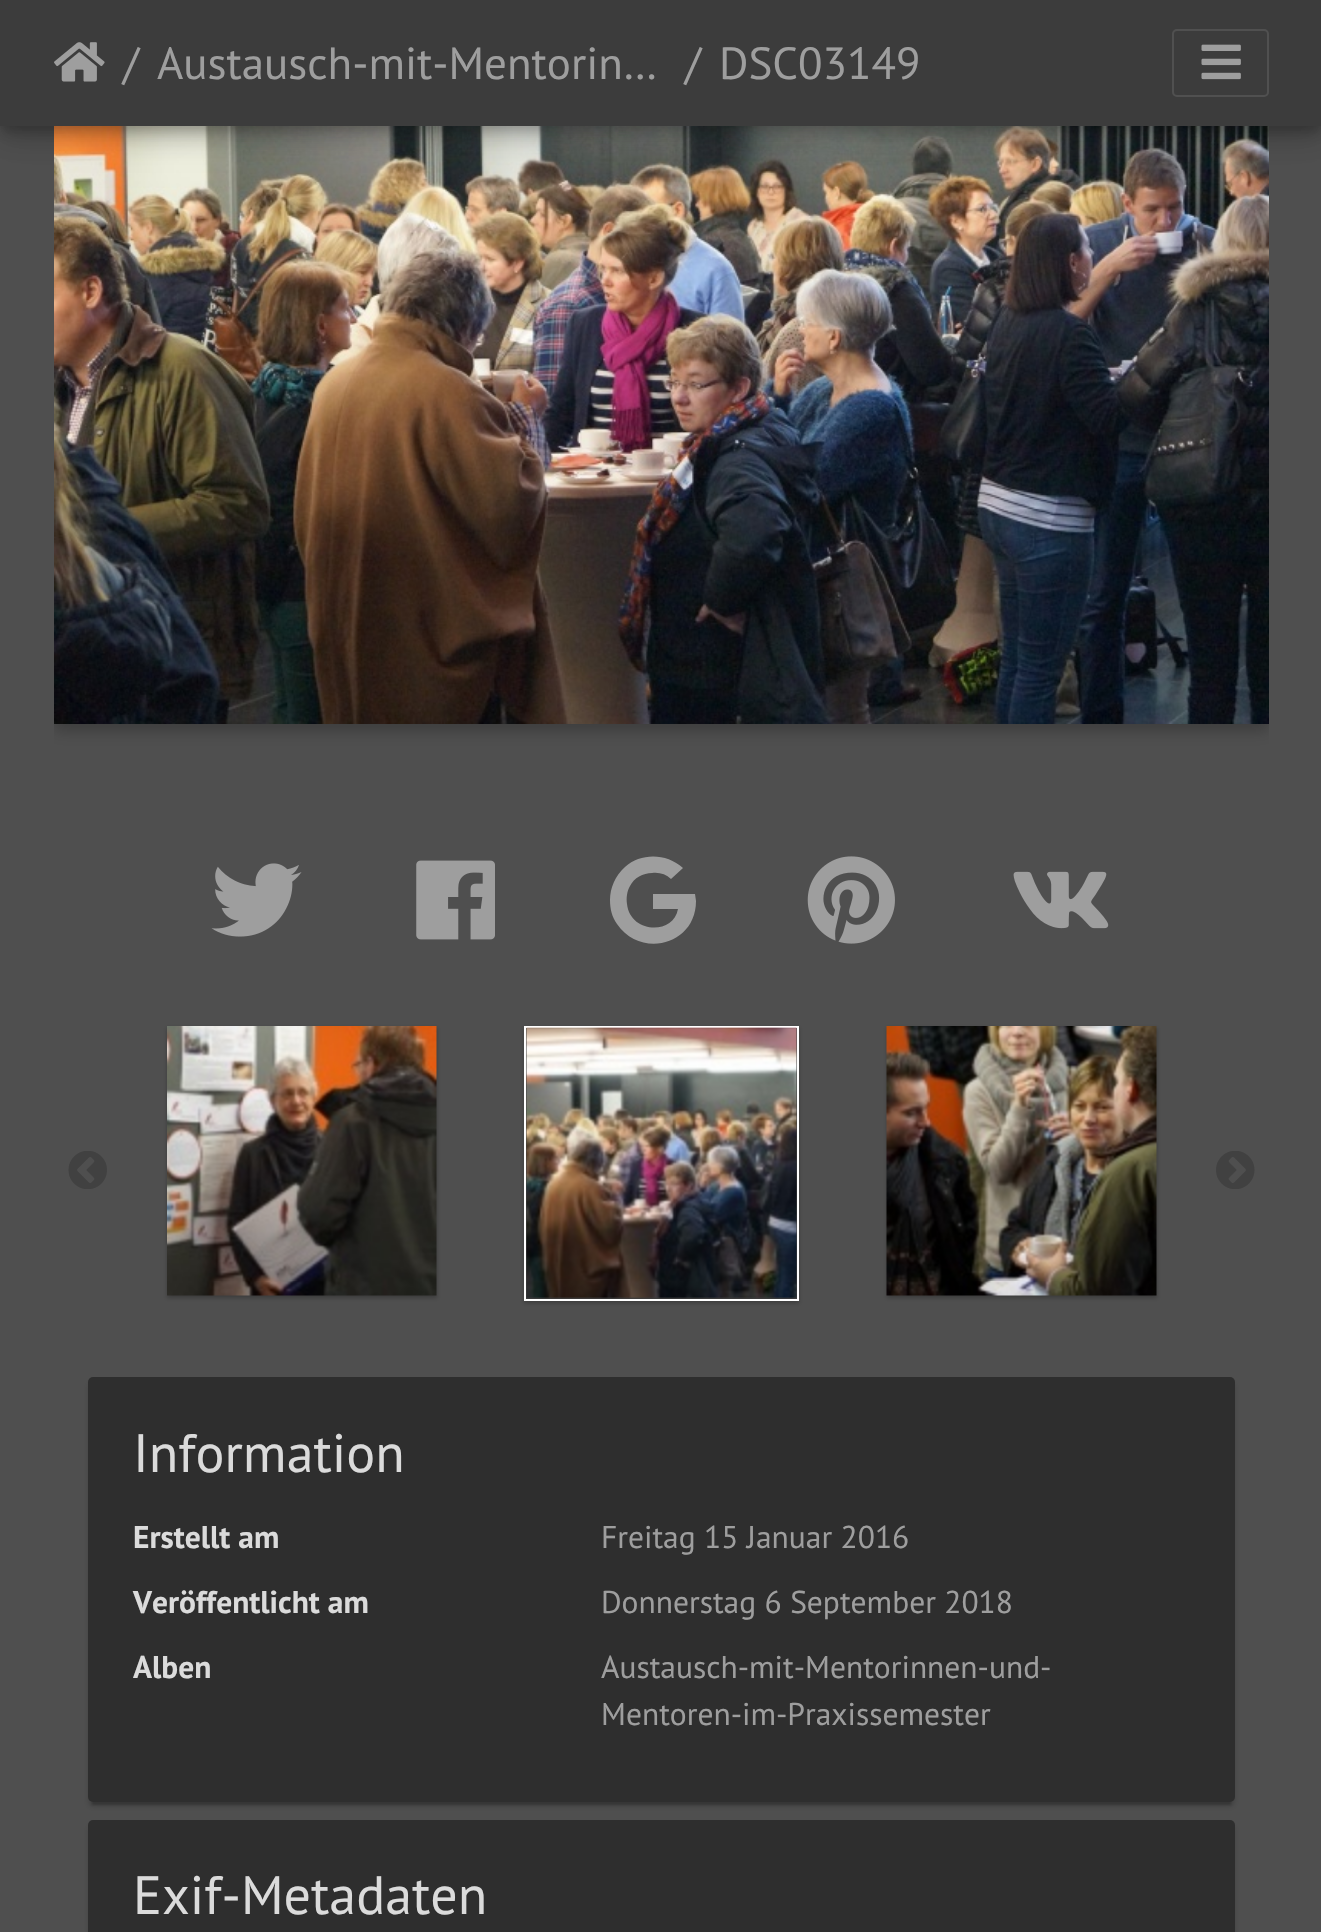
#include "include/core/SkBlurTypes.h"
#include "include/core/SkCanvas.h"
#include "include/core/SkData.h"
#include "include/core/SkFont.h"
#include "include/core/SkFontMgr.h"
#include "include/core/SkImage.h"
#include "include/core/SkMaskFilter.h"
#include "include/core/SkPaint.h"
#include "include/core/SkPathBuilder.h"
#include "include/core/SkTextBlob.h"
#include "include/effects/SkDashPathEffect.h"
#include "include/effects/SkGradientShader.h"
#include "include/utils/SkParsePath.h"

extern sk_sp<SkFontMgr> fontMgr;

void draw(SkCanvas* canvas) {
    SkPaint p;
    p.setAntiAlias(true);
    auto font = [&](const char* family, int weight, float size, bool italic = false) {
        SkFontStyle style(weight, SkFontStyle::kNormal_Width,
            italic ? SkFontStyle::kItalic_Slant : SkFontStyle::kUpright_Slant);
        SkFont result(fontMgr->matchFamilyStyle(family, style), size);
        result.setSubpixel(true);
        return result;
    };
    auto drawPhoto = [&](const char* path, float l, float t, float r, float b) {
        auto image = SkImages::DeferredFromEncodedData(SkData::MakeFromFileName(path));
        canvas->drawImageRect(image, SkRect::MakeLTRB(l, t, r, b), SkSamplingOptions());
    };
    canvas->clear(0xFF4F4F4F);
    canvas->save();
    canvas->clipRect(SkRect::MakeLTRB(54, 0, 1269, 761));
    p.setColor(0x3B000000);
    p.setMaskFilter(SkMaskFilter::MakeBlur(kNormal_SkBlurStyle, 7));
    canvas->drawRect(SkRect::MakeLTRB(54, -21, 1269, 731), p);
    p.setMaskFilter(nullptr);
    canvas->restore();
    drawPhoto("media/1.png", 54, 126, 1269, 724);
    drawPhoto("media/2.png", 211, 863, 302, 937);
    drawPhoto("media/3.png", 416, 860, 495, 940);
    p.setColor(0xFF9E9E9E);
    canvas->drawPath(SkPathBuilder().moveTo(696, 901).cubicTo(696, 945, 641, 959, 617, 924).cubicTo(612, 917, 610, 909, 610, 900).cubicTo(610, 888, 615, 876, 625, 867).cubicTo(641, 853, 666, 853, 683, 868).lineTo(671, 879).cubicTo(666, 874, 659, 872, 652, 873).cubicTo(643, 873, 634, 878, 630, 886).cubicTo(627, 891, 626, 898, 627, 904).cubicTo(630, 933, 673, 936, 678, 909).lineTo(653, 909).lineTo(653, 894).lineTo(695, 894).close().detach(), p);
    drawPhoto("media/4.png", 807, 856, 895, 944);
    drawPhoto("media/5.png", 1013, 871, 1109, 929);
    p.setColor(0x33000000);
    p.setMaskFilter(SkMaskFilter::MakeBlur(kNormal_SkBlurStyle, 5.5f));
    canvas->drawRect(SkRect::MakeLTRB(2, 9, 1321, 131), p);
    p.setMaskFilter(nullptr);
    p.setColor(0x1F000000);
    p.setMaskFilter(SkMaskFilter::MakeBlur(kNormal_SkBlurStyle, 20));
    canvas->drawRect(SkRect::MakeLTRB(0, 2, 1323, 128), p);
    p.setMaskFilter(nullptr);
    p.setColor(0x24000000);
    p.setMaskFilter(SkMaskFilter::MakeBlur(kNormal_SkBlurStyle, 11));
    canvas->drawRect(SkRect::MakeLTRB(0, 14, 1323, 140), p);
    p.setMaskFilter(nullptr);
    p.setColor(0xFF3C3C3C);
    canvas->drawRect(SkRect::MakeLTRB(0, 0, 1321, 126), p);
    drawPhoto("media/6.png", 54, 42, 105, 82);
    auto font1 = font("PT Sans", 400, 45);
    p.setColor(0xFF9E9E9E);
    {
        const struct { const char* s; float x, y; } items[] = {
            {"/", 123, 79},
            {"Austausch-mit-Mentorin…", 157, 79},
            {"/", 685, 79},
            {"DSC03149", 719, 79},
        };
        for (auto [s, x, y] : items) {
            canvas->drawString(s, x, y, font1, p);
        }
    }
    p.setStyle(SkPaint::kStroke_Style);
    p.setStrokeWidth(2);
    p.setColor(0xFF505050);
    canvas->drawRoundRect(SkRect::MakeLTRB(1173, 30, 1268, 96), 4, 4, p);
    drawPhoto("media/7.png", 1201, 44, 1241, 80);
    drawPhoto("media/8.png", 68, 1151, 107, 1189);
    p.setStyle(SkPaint::kFill_Style);
    p.setColor(0x3D000000);
    p.setMaskFilter(SkMaskFilter::MakeBlur(kNormal_SkBlurStyle, 2));
    canvas->drawRect(SkRect::MakeLTRB(167, 1028, 437, 1298), p);
    p.setMaskFilter(nullptr);
    drawPhoto("media/9.png", 167, 1026, 437, 1296);
    p.setMaskFilter(SkMaskFilter::MakeBlur(kNormal_SkBlurStyle, 2));
    canvas->drawRect(SkRect::MakeLTRB(524, 1028, 799, 1303), p);
    p.setMaskFilter(nullptr);
    p.setStyle(SkPaint::kStroke_Style);
    p.setColor(0xFFFFFFFF);
    canvas->drawRect(SkRect::MakeLTRB(525, 1027, 798, 1300), p);
    drawPhoto("media/10.png", 526, 1027, 797, 1299);
    p.setStyle(SkPaint::kFill_Style);
    p.setColor(0x3D000000);
    p.setMaskFilter(SkMaskFilter::MakeBlur(kNormal_SkBlurStyle, 2));
    canvas->drawRect(SkRect::MakeLTRB(887, 1028, 1157, 1298), p);
    p.setMaskFilter(nullptr);
    drawPhoto("media/11.png", 886, 1026, 1157, 1296);
    drawPhoto("media/12.png", 1216, 1151, 1255, 1189);
    p.setColor(0x33000000);
    p.setMaskFilter(SkMaskFilter::MakeBlur(kNormal_SkBlurStyle, 1));
    canvas->drawRect(SkRect::MakeLTRB(92, 1388, 1231, 1805), p);
    p.setMaskFilter(nullptr);
    p.setColor(0x24000000);
    p.setMaskFilter(SkMaskFilter::MakeBlur(kNormal_SkBlurStyle, 2));
    canvas->drawRoundRect(SkRect::MakeLTRB(88, 1382, 1235, 1807), 5, 5, p);
    p.setMaskFilter(nullptr);
    p.setColor(0xFF2E2E2E);
    canvas->drawRoundRect(SkRect::MakeLTRB(88, 1377, 1235, 1802), 5, 5, p);
    auto font2 = font("PT Sans", 400, 54);
    p.setColor(0xFFDBDBDB);
    canvas->drawString("Information", 133, 1472, font2, p);
    auto font3 = font("PT Sans", 700, 31.5f);
    canvas->drawString("Erstellt am", 133, 1548, font3, p);
    auto font4 = font("PT Sans", 400, 31.5f);
    p.setColor(0xFF9E9E9E);
    canvas->drawString("Freitag 15 Januar 2016", 601, 1548, font4, p);
    p.setColor(0xFFDBDBDB);
    canvas->drawString("Veröffentlicht am", 133, 1613, font3, p);
    p.setColor(0xFF9E9E9E);
    canvas->drawString("Donnerstag 6 September 2018", 601, 1613, font4, p);
    p.setColor(0xFFDBDBDB);
    canvas->drawString("Alben", 133, 1678, font3, p);
    p.setColor(0xFF9E9E9E);
    canvas->drawString("Austausch-mit-Mentorinnen-und-", 601, 1678, font4, p);
    canvas->drawString("Mentoren-im-Praxissemester", 601, 1725, font4, p);
    p.setColor(0x24000000);
    p.setMaskFilter(SkMaskFilter::MakeBlur(kNormal_SkBlurStyle, 2));
    canvas->drawRoundRect(SkRect::MakeLTRB(88, 1825, 1235, 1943), 5, 5, p);
    p.setMaskFilter(nullptr);
    p.setColor(0xFF2E2E2E);
    canvas->drawRoundRect(SkRect::MakeLTRB(88, 1820, 1235, 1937), 5, 5, p);
    p.setColor(0xFFDBDBDB);
    canvas->drawString("Exif-Metadaten", 133, 1914, font2, p);
}
